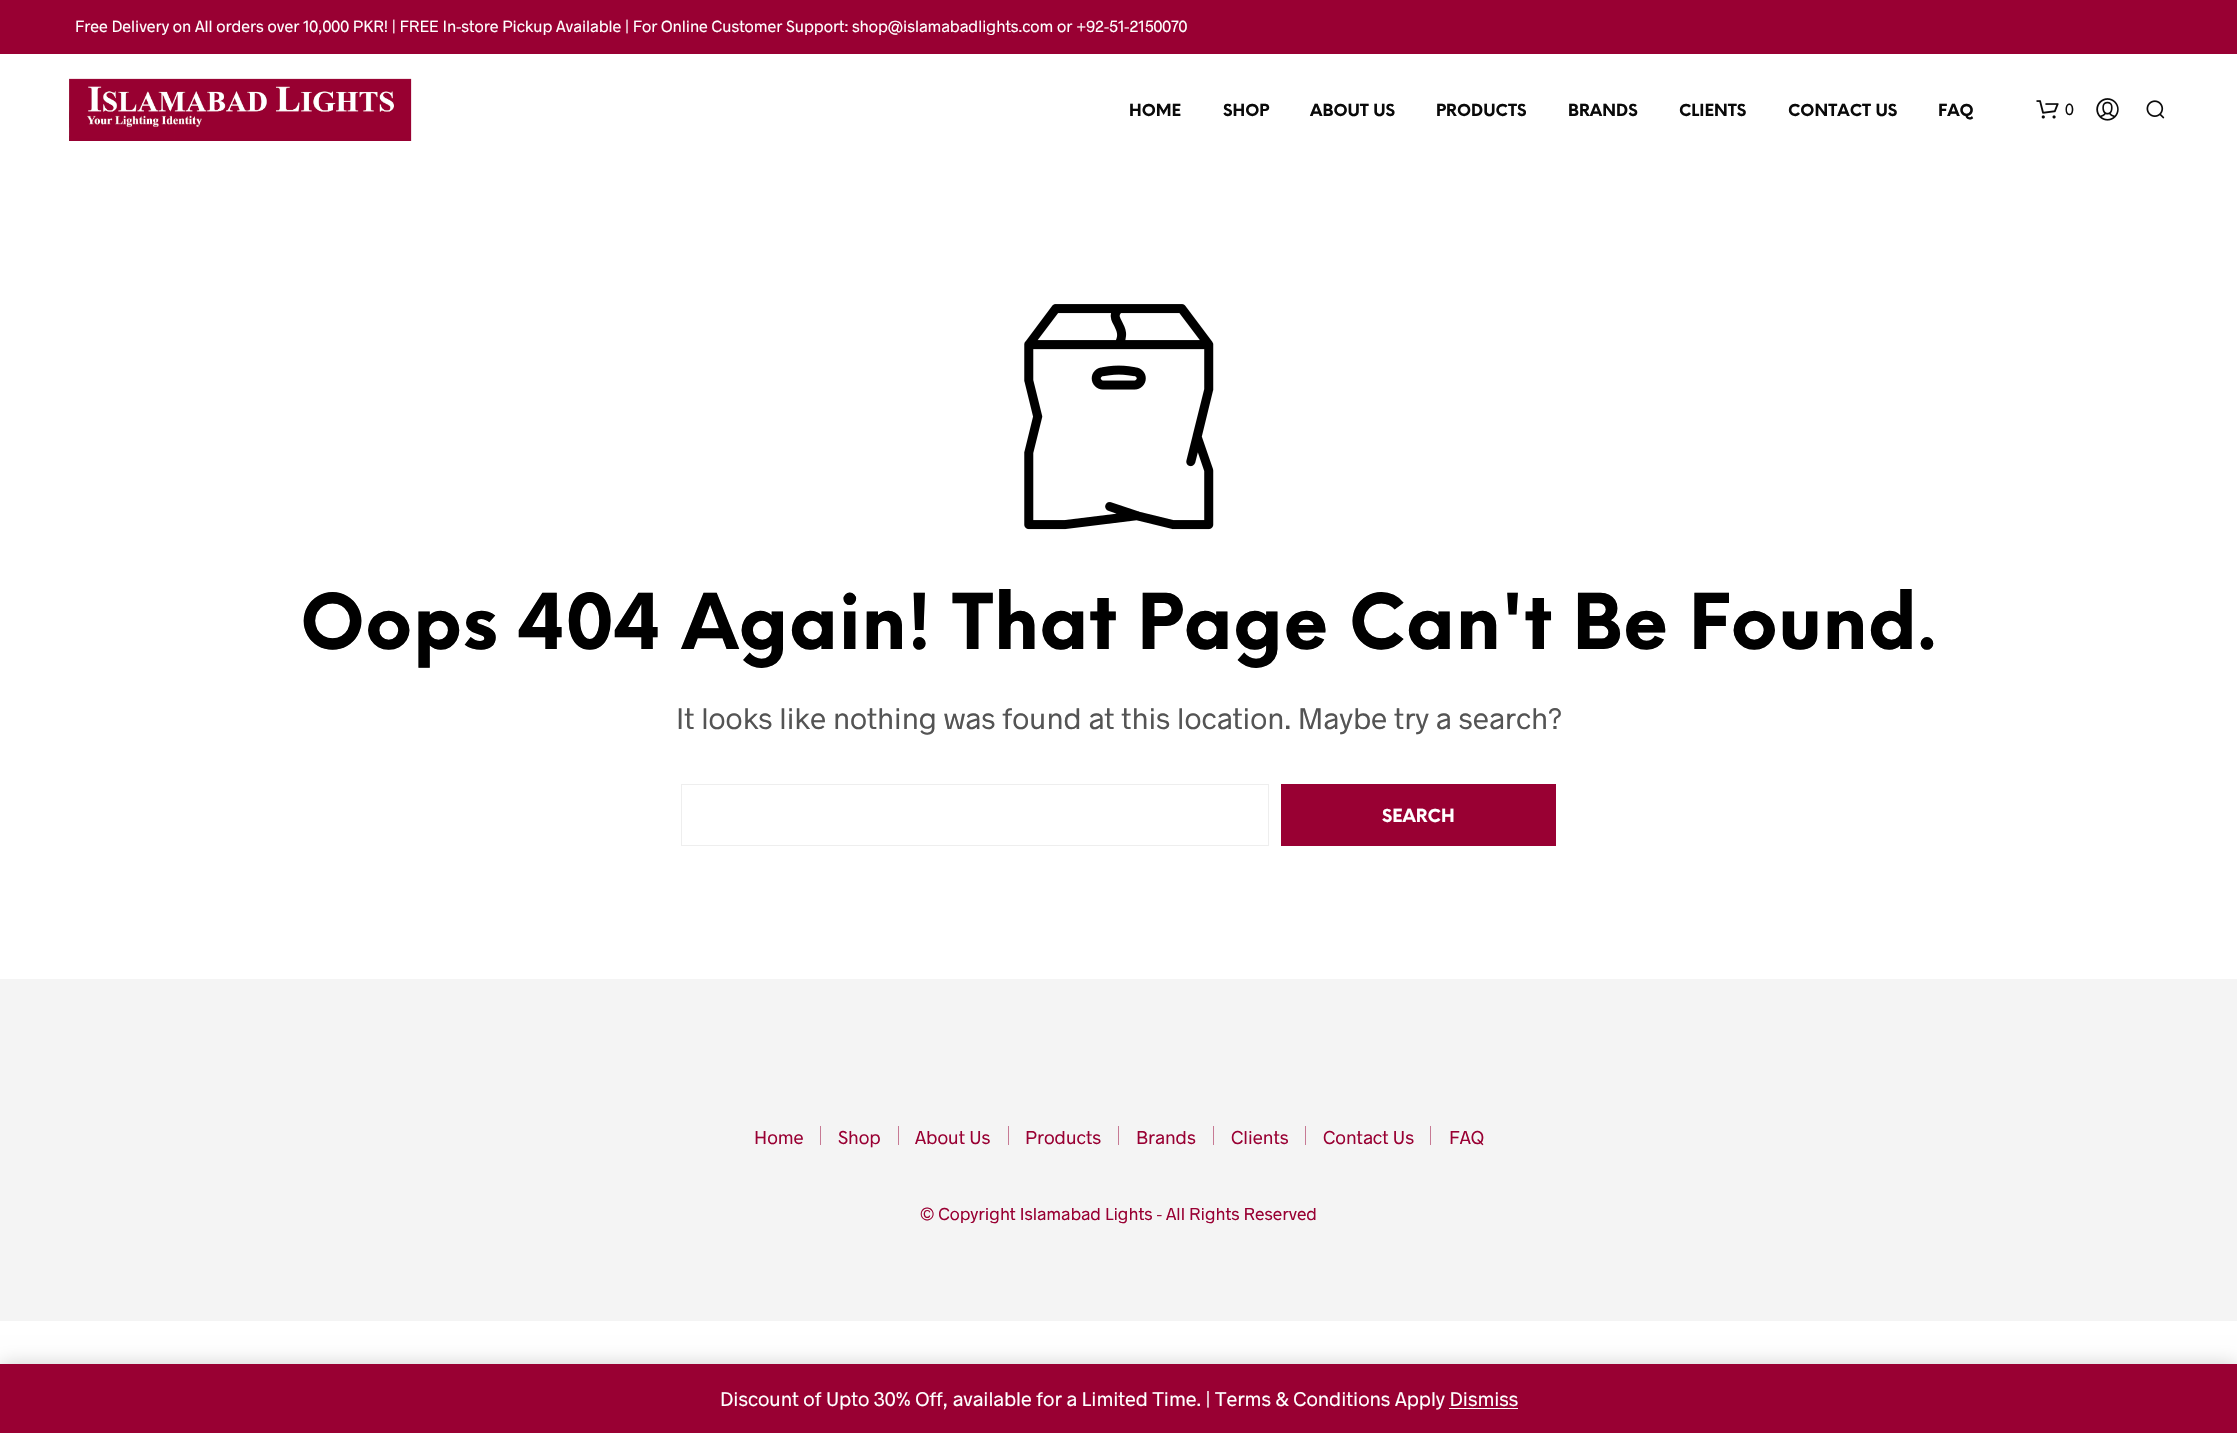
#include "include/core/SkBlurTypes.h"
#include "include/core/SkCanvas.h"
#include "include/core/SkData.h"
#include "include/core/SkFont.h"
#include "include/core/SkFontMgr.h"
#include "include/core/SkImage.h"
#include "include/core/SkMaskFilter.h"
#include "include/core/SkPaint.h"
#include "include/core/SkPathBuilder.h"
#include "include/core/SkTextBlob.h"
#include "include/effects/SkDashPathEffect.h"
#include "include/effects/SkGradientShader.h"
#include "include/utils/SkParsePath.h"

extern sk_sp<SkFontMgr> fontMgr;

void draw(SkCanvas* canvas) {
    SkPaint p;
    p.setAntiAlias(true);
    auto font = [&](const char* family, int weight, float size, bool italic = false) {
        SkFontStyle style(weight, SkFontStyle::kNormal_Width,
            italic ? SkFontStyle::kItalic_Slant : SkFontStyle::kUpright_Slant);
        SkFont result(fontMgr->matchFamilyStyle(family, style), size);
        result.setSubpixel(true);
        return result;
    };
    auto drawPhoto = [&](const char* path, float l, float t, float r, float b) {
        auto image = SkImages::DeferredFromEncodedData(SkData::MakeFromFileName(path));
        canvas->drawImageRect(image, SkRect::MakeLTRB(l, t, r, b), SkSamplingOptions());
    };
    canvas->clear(0xFFFFFFFF);
    p.setColor(0xFF990033);
    canvas->drawRect(SkRect::MakeLTRB(0, 0, 2237, 54), p);
    auto font1 = font("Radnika", 400, 16.25f);
    p.setColor(0xFFFFFFFF);
    canvas->drawString("Free Delivery on All orders over 10,000 PKR! | FREE In-store Pickup Available | For Online Customer Support: shop@islamabadlights.com or +92-51-2150070", 75, 32, font1, p);
    drawPhoto("media/1.png", 69, 78, 412, 141);
    auto font2 = font("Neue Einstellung", 700, 16.25f);
    p.setColor(0xFF0A0A0A);
    {
        const struct { const char* s; float x, y; } items[] = {
            {"HOME", 1129, 116},
            {"SHOP", 1223, 116},
            {"ABOUT US", 1310, 116},
            {"PRODUCTS", 1436, 116},
            {"BRANDS", 1568, 116},
            {"CLIENTS", 1679, 116},
            {"CONTACT US", 1788, 116},
            {"FAQ", 1938, 116},
        };
        for (auto [s, x, y] : items) {
            canvas->drawString(s, x, y, font2, p);
        }
    }
    drawPhoto("media/2.png", 2036, 100, 2059, 119);
    canvas->drawString("0", 2065, 115, font1, p);
    drawPhoto("media/3.png", 2096, 98, 2119, 121);
    drawPhoto("media/4.png", 2146, 100, 2165, 119);
    drawPhoto("media/5.png", 1024, 304, 1214, 530);
    auto font3 = font("Neue Einstellung", 700, 75);
    p.setColor(0xFF000000);
    canvas->drawString("Oops 404 Again! That Page Can't Be Found.", 300, 649, font3, p);
    auto font4 = font("Radnika", 400, 30);
    p.setColor(0xFF545454);
    canvas->drawString("It looks like nothing was found at this location. Maybe try a search?", 676, 729, font4, p);
    p.setStyle(SkPaint::kStroke_Style);
    p.setStrokeWidth(1);
    p.setColor(0xFFEEEEEE);
    canvas->drawRect(SkRect::MakeLTRB(681.5f, 784.5f, 1268.5f, 845.5f), p);
    p.setStyle(SkPaint::kFill_Style);
    p.setColor(0xFF990033);
    canvas->drawRect(SkRect::MakeLTRB(1281, 784, 1556, 846), p);
    auto font5 = font("Neue Einstellung", 700, 17.5f);
    p.setColor(0xFFFFFFFF);
    canvas->drawString("SEARCH", 1382, 822, font5, p);
    p.setColor(0xFFF4F4F4);
    canvas->drawRect(SkRect::MakeLTRB(0, 979, 2237, 1321), p);
    auto font6 = font("Radnika", 400, 18.75f);
    p.setColor(0xFF990033);
    canvas->drawString("Home", 754, 1144, font6, p);
    p.setColor(0xFFC77A94);
    canvas->drawRect(SkRect::MakeLTRB(820, 1126, 821, 1145), p);
    p.setColor(0xFF990033);
    canvas->drawString("Shop", 838, 1144, font6, p);
    p.setColor(0xFFC77A94);
    canvas->drawRect(SkRect::MakeLTRB(898, 1126, 899, 1145), p);
    p.setColor(0xFF990033);
    canvas->drawString("About Us", 915, 1144, font6, p);
    p.setColor(0xFFC77A94);
    canvas->drawRect(SkRect::MakeLTRB(1008, 1126, 1009, 1145), p);
    p.setColor(0xFF990033);
    canvas->drawString("Products", 1025, 1144, font6, p);
    p.setColor(0xFFC77A94);
    canvas->drawRect(SkRect::MakeLTRB(1118, 1126, 1119, 1145), p);
    p.setColor(0xFF990033);
    canvas->drawString("Brands", 1136, 1144, font6, p);
    p.setColor(0xFFC77A94);
    canvas->drawRect(SkRect::MakeLTRB(1213, 1126, 1214, 1145), p);
    p.setColor(0xFF990033);
    canvas->drawString("Clients", 1231, 1144, font6, p);
    p.setColor(0xFFC77A94);
    canvas->drawRect(SkRect::MakeLTRB(1305, 1126, 1306, 1145), p);
    p.setColor(0xFF990033);
    canvas->drawString("Contact Us", 1323, 1144, font6, p);
    p.setColor(0xFFC77A94);
    canvas->drawRect(SkRect::MakeLTRB(1430, 1126, 1431, 1145), p);
    p.setColor(0xFF990033);
    canvas->drawString("FAQ", 1449, 1144, font6, p);
    auto font7 = font("Radnika", 400, 17.5f);
    canvas->drawString("© Copyright Islamabad Lights - All Rights Reserved", 920, 1220, font7, p);
    p.setColor(0x33000000);
    p.setMaskFilter(SkMaskFilter::MakeBlur(kNormal_SkBlurStyle, 10));
    canvas->drawRect(SkRect::MakeLTRB(0, 1365, 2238, 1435), p);
    p.setMaskFilter(nullptr);
    p.setColor(0xFF990033);
    canvas->drawRect(SkRect::MakeLTRB(0, 1364, 2237, 1433), p);
    auto font8 = font("Radnika", 400, 20);
    p.setColor(0xFFFFFFFF);
    canvas->drawString("Discount of Upto 30% Off, available for a Limited Time. | Terms & Conditions Apply Dismiss", 720, 1406, font8, p);
    p.setColor(0xFFFCFBFE);
    canvas->drawRect(SkRect::MakeLTRB(1449, 1408, 1518, 1409), p);
}
